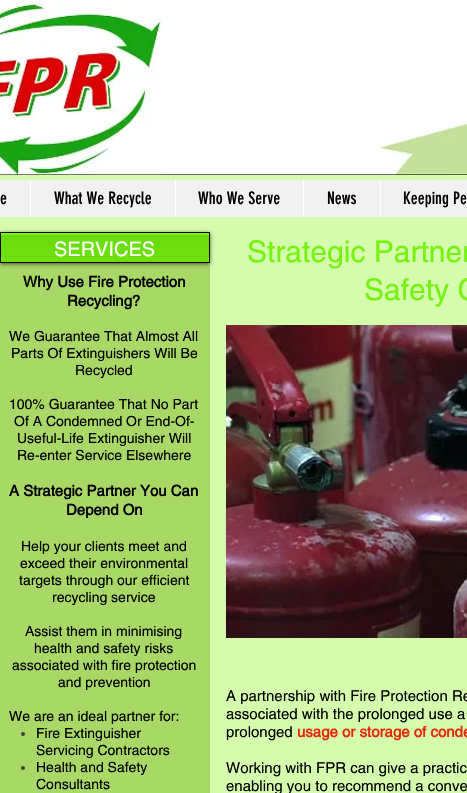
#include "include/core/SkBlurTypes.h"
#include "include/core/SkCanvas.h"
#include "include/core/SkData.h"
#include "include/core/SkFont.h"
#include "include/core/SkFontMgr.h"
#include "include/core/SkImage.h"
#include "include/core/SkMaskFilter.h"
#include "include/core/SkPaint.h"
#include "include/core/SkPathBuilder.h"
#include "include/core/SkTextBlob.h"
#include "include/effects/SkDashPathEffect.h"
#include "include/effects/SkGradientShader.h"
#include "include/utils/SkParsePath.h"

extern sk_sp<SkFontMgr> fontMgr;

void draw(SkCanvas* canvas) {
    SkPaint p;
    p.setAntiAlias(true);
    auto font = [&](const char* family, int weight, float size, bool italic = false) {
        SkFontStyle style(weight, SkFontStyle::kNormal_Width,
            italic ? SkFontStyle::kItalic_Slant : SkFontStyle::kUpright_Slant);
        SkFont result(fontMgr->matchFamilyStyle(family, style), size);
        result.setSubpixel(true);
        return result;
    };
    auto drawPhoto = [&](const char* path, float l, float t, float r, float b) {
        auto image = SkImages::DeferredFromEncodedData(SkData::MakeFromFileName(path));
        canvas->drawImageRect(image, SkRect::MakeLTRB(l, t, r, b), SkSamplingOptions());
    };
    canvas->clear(0xFFD5FBAC);
    drawPhoto("media/1.png", 0, 0, 467, 175);
    p.setColor(0xFFF1F1F1);
    canvas->drawRect(SkRect::MakeLTRB(0, 180, 467, 217), p);
    auto font1 = font("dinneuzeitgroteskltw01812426", 400, 17);
    p.setColor(0xFF000000);
    canvas->drawString("e", 0, 204, font1, p);
    p.setColor(0xFFFFFFFF);
    canvas->drawRect(SkRect::MakeLTRB(30, 180, 31, 217), p);
    p.setColor(0xFF000000);
    canvas->drawString("What We Recycle", 54, 204, font1, p);
    p.setColor(0xFFFFFFFF);
    canvas->drawRect(SkRect::MakeLTRB(175, 180, 176, 217), p);
    p.setColor(0xFF000000);
    canvas->drawString("Who We Serve", 198, 204, font1, p);
    p.setColor(0xFFFFFFFF);
    canvas->drawRect(SkRect::MakeLTRB(303, 180, 304, 217), p);
    p.setColor(0xFF000000);
    canvas->drawString("News", 327, 204, font1, p);
    p.setColor(0xFFFFFFFF);
    canvas->drawRect(SkRect::MakeLTRB(380, 180, 381, 217), p);
    p.setColor(0xFF000000);
    canvas->drawString("Keeping Pe", 403, 204, font1, p);
    p.setColor(0xFFA8D865);
    canvas->drawRect(SkRect::MakeLTRB(0, 263, 210, 793), p);
    p.setColor(0x99000000);
    p.setMaskFilter(SkMaskFilter::MakeBlur(kNormal_SkBlurStyle, 2));
    canvas->drawRect(SkRect::MakeLTRB(0, 233, 210, 264), p);
    p.setMaskFilter(nullptr);
    p.setColor(0xFF75F20D);
    canvas->drawRect(SkRect::MakeLTRB(1, 233, 209, 262), p);
    drawPhoto("media/2.png", 1, 235, 209, 262);
    p.setStyle(SkPaint::kStroke_Style);
    p.setStrokeWidth(1);
    p.setColor(0xFF000000);
    canvas->drawRect(SkRect::MakeLTRB(0.5f, 232.5f, 209.5f, 262.5f), p);
    auto font2 = font("helvetica", 400, 20);
    p.setStyle(SkPaint::kFill_Style);
    p.setColor(0xFFFFFFFF);
    canvas->drawString("SERVICES", 54, 256, font2, p);
    auto font3 = font("helvetica", 700, 15);
    p.setColor(0xFF000000);
    canvas->drawString("Why Use Fire Protection", 23, 287, font3, p);
    canvas->drawString("Recycling?", 67, 306, font3, p);
    auto font4 = font("helvetica", 400, 14);
    {
        const struct { const char* s; float x, y; } items[] = {
            {"We Guarantee That Almost All", 9, 341},
            {"Parts Of Extinguishers Will Be", 11, 358},
            {"Recycled", 75, 375},
            {"100% Guarantee That No Part", 9, 409},
            {"Of A Condemned Or End-Of-", 14, 426},
            {"Useful-Life Extinguisher Will", 17, 443},
            {"Re-enter Service Elsewhere", 17, 460},
        };
        for (auto [s, x, y] : items) {
            canvas->drawString(s, x, y, font4, p);
        }
    }
    canvas->drawString("A Strategic Partner You Can", 9, 496, font3, p);
    canvas->drawString("Depend On", 66, 515, font3, p);
    {
        const struct { const char* s; float x, y; } items[] = {
            {"Help your clients meet and", 21, 551},
            {"exceed their environmental", 20, 568},
            {"targets through our efficient", 19, 585},
            {"recycling service", 52, 602},
            {"Assist them in minimising", 25, 636},
            {"health and safety risks", 34, 653},
            {"associated with fire protection", 12, 670},
            {"and prevention", 58, 687},
            {"We are an ideal partner for:", 9, 721},
        };
        for (auto [s, x, y] : items) {
            canvas->drawString(s, x, y, font4, p);
        }
    }
    p.setColor(0xFF404040);
    canvas->drawCircle(23, 734, 2, p);
    p.setColor(0xFF000000);
    canvas->drawString("Fire Extinguisher", 36, 738, font4, p);
    canvas->drawString("Servicing Contractors", 36, 755, font4, p);
    p.setColor(0xFF404040);
    canvas->drawCircle(23, 768, 2, p);
    p.setColor(0xFF000000);
    canvas->drawString("Health and Safety", 36, 772, font4, p);
    canvas->drawString("Consultants", 36, 789, font4, p);
    auto font5 = font("helvetica", 400, 30);
    p.setColor(0xFF75F20D);
    canvas->drawString("Strategic Partner", 247, 262, font5, p);
    canvas->drawString("Safety C", 364, 300, font5, p);
    drawPhoto("media/3.png", 226, 325, 467, 638);
    auto font6 = font("helvetica", 400, 15);
    p.setColor(0xFF000000);
    {
        const struct { const char* s; float x, y; } items[] = {
            {"A partnership with Fire Protection Re", 226, 701},
            {"associated with the prolonged use a", 226, 719},
            {"prolonged", 226, 737},
        };
        for (auto [s, x, y] : items) {
            canvas->drawString(s, x, y, font6, p);
        }
    }
    p.setColor(0xFFEA2408);
    canvas->drawString("usage or storage of conde", 297, 737, font3, p);
    p.setColor(0xFF000000);
    canvas->drawString("Working with FPR can give a practic", 226, 773, font6, p);
    canvas->drawString("enabling you to recommend a conve", 226, 791, font6, p);
}
